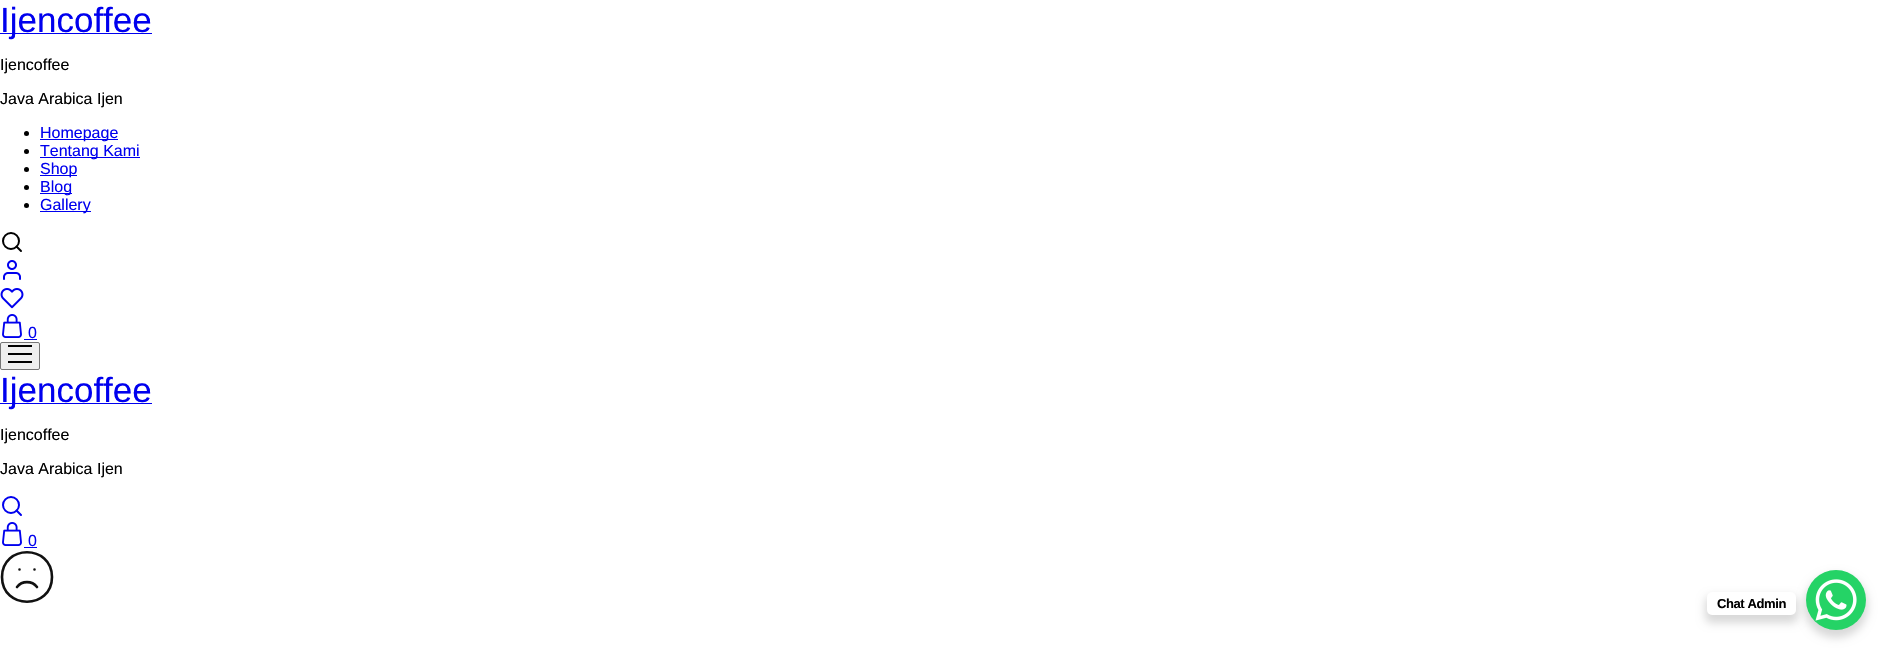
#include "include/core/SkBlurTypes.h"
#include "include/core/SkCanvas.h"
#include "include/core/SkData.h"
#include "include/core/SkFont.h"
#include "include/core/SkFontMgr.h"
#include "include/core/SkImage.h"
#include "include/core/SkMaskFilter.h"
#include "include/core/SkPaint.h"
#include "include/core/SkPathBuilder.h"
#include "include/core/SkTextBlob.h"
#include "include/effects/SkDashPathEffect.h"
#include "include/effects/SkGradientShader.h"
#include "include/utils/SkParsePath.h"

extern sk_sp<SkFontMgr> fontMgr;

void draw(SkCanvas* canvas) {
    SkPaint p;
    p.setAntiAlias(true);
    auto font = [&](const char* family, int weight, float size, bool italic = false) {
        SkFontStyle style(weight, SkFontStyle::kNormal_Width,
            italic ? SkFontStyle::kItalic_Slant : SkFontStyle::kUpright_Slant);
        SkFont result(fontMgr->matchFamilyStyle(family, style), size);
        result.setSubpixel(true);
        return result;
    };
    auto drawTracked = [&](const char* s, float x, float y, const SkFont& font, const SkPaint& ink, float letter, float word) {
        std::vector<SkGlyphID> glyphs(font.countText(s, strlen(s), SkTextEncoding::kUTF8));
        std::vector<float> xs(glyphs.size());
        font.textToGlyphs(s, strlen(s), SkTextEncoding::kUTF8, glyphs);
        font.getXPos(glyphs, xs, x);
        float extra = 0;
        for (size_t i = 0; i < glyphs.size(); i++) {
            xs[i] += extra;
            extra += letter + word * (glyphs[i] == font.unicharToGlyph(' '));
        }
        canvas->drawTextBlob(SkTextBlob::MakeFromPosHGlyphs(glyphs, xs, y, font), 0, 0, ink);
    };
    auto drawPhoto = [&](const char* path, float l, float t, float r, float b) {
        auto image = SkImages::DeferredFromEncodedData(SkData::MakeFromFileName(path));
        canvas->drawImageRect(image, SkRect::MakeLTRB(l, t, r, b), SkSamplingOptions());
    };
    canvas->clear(0xFFFFFFFF);
    p.setColor(0xFF0000EE);
    canvas->drawRect(SkRect::MakeLTRB(0, 33, 152, 34), p);
    auto font1 = font("Liberation Sans", 400, 35);
    canvas->drawString("Ijencoffee", 0, 32, font1, p);
    auto font2 = font("Liberation Sans", 400, 16);
    p.setColor(0xFF000000);
    canvas->drawString("Ijencoffee", 0, 70, font2, p);
    canvas->drawString("Java Arabica Ijen", 0, 104, font2, p);
    canvas->drawCircle(26.5f, 133.5f, 2.5f, p);
    p.setColor(0xFF0000EE);
    canvas->drawRect(SkRect::MakeLTRB(40, 139, 118, 140), p);
    canvas->drawString("Homepage", 40, 138, font2, p);
    p.setColor(0xFF000000);
    canvas->drawCircle(26.5f, 151.5f, 2.5f, p);
    p.setColor(0xFF0000EE);
    canvas->drawRect(SkRect::MakeLTRB(40, 157, 140, 158), p);
    canvas->drawString("Tentang Kami", 40, 156, font2, p);
    p.setColor(0xFF000000);
    canvas->drawCircle(26.5f, 169.5f, 2.5f, p);
    p.setColor(0xFF0000EE);
    canvas->drawRect(SkRect::MakeLTRB(40, 175, 77, 176), p);
    canvas->drawString("Shop", 40, 174, font2, p);
    p.setColor(0xFF000000);
    canvas->drawCircle(26.5f, 187.5f, 2.5f, p);
    p.setColor(0xFF0000EE);
    canvas->drawRect(SkRect::MakeLTRB(40, 193, 72, 194), p);
    canvas->drawString("Blog", 40, 192, font2, p);
    p.setColor(0xFF000000);
    canvas->drawCircle(26.5f, 205.5f, 2.5f, p);
    p.setColor(0xFF0000EE);
    canvas->drawRect(SkRect::MakeLTRB(40, 211, 91, 212), p);
    canvas->drawString("Gallery", 40, 210, font2, p);
    p.setStyle(SkPaint::kStroke_Style);
    p.setStrokeWidth(2);
    p.setColor(0xFF000000);
    canvas->drawCircle(11, 241, 8, p);
    p.setStrokeCap(SkPaint::kRound_Cap);
    p.setStrokeJoin(SkPaint::kRound_Join);
    canvas->drawPath(SkPathBuilder().moveTo(21, 251).lineTo(16.5f, 246.5f).detach(), p);
    drawPhoto("media/1.png", 3, 260, 21, 280);
    drawPhoto("media/2.png", 0, 288, 24, 309);
    drawPhoto("media/3.png", 2, 314, 22, 338);
    p.setStyle(SkPaint::kFill_Style);
    p.setColor(0xFF0000EE);
    canvas->drawString("0", 28, 338, font2, p);
    canvas->drawRect(SkRect::MakeLTRB(24, 339, 37, 340), p);
    p.setColor(0xFFEFEFEF);
    canvas->drawRoundRect(SkRect::MakeLTRB(0.5f, 342.5f, 39.5f, 369.5f), 1.5f, 1.5f, p);
    p.setStyle(SkPaint::kStroke_Style);
    p.setStrokeWidth(1);
    p.setStrokeCap(SkPaint::kButt_Cap);
    p.setStrokeJoin(SkPaint::kMiter_Join);
    p.setColor(0xFF767676);
    canvas->drawRoundRect(SkRect::MakeLTRB(0.5f, 342.5f, 39.5f, 369.5f), 1.5f, 1.5f, p);
    p.setStyle(SkPaint::kFill_Style);
    {
        const struct { float l, t, r, b; SkColor color; } items[] = {
            {8, 345, 32, 347, 0xFF000000},
            {8, 353, 32, 355, 0xFF000000},
            {8, 361, 32, 363, 0xFF000000},
            {0, 403, 152, 404, 0xFF0000EE},
        };
        for (auto [l, t, r, b, color] : items) {
            p.setColor(color);
            canvas->drawRect(SkRect::MakeLTRB(l, t, r, b), p);
        }
    }
    canvas->drawString("Ijencoffee", 0, 402, font1, p);
    p.setColor(0xFF000000);
    canvas->drawString("Ijencoffee", 0, 440, font2, p);
    canvas->drawString("Java Arabica Ijen", 0, 474, font2, p);
    p.setStyle(SkPaint::kStroke_Style);
    p.setStrokeWidth(2);
    p.setColor(0xFF0000EE);
    canvas->drawCircle(11, 505, 8, p);
    p.setStrokeCap(SkPaint::kRound_Cap);
    p.setStrokeJoin(SkPaint::kRound_Join);
    canvas->drawPath(SkPathBuilder().moveTo(21, 515).lineTo(16.5f, 510.5f).detach(), p);
    drawPhoto("media/3.png", 2, 522, 22, 546);
    p.setStyle(SkPaint::kFill_Style);
    canvas->drawString("0", 28, 546, font2, p);
    canvas->drawRect(SkRect::MakeLTRB(24, 547, 37, 548), p);
    p.setStyle(SkPaint::kStroke_Style);
    p.setStrokeWidth(2.6f);
    p.setColor(0xFF111111);
    canvas->drawPath(SkPathBuilder().moveTo(37, 587).cubicTo(32, 580.5f, 22, 580.5f, 17, 587).moveTo(19.5f, 569.5f).lineTo(19.5f, 569.5f).moveTo(34.5f, 569.5f).lineTo(34.5f, 569.5f).moveTo(52, 577).cubicTo(52, 610, 2, 610, 2, 577).cubicTo(2, 544, 52, 544, 52, 577).close().detach(), p);
    p.setStyle(SkPaint::kFill_Style);
    p.setColor(0x26000000);
    p.setMaskFilter(SkMaskFilter::MakeBlur(kNormal_SkBlurStyle, 4));
    canvas->drawRoundRect(SkRect::MakeLTRB(1804, 574, 1868, 638), 32, 32, p);
    p.setMaskFilter(nullptr);
    p.setColor(0xFF25D366);
    canvas->drawCircle(1836, 600, 30, p);
    p.setColor(0x26000000);
    p.setMaskFilter(SkMaskFilter::MakeBlur(kNormal_SkBlurStyle, 4));
    canvas->drawRoundRect(SkRect::MakeLTRB(1705, 596, 1798, 623), 7, 7, p);
    p.setMaskFilter(nullptr);
    p.setColor(0xFFFFFFFF);
    canvas->drawRoundRect(SkRect::MakeLTRB(1707, 592, 1796, 615), 5, 5, p);
    auto font3 = font("Liberation Sans", 700, 13);
    p.setColor(0xFF000000);
    drawTracked("Chat Admin", 1717, 608, font3, p, -0.4f, 0);
    drawPhoto("media/4.png", 1815, 579, 1857, 621);
}
